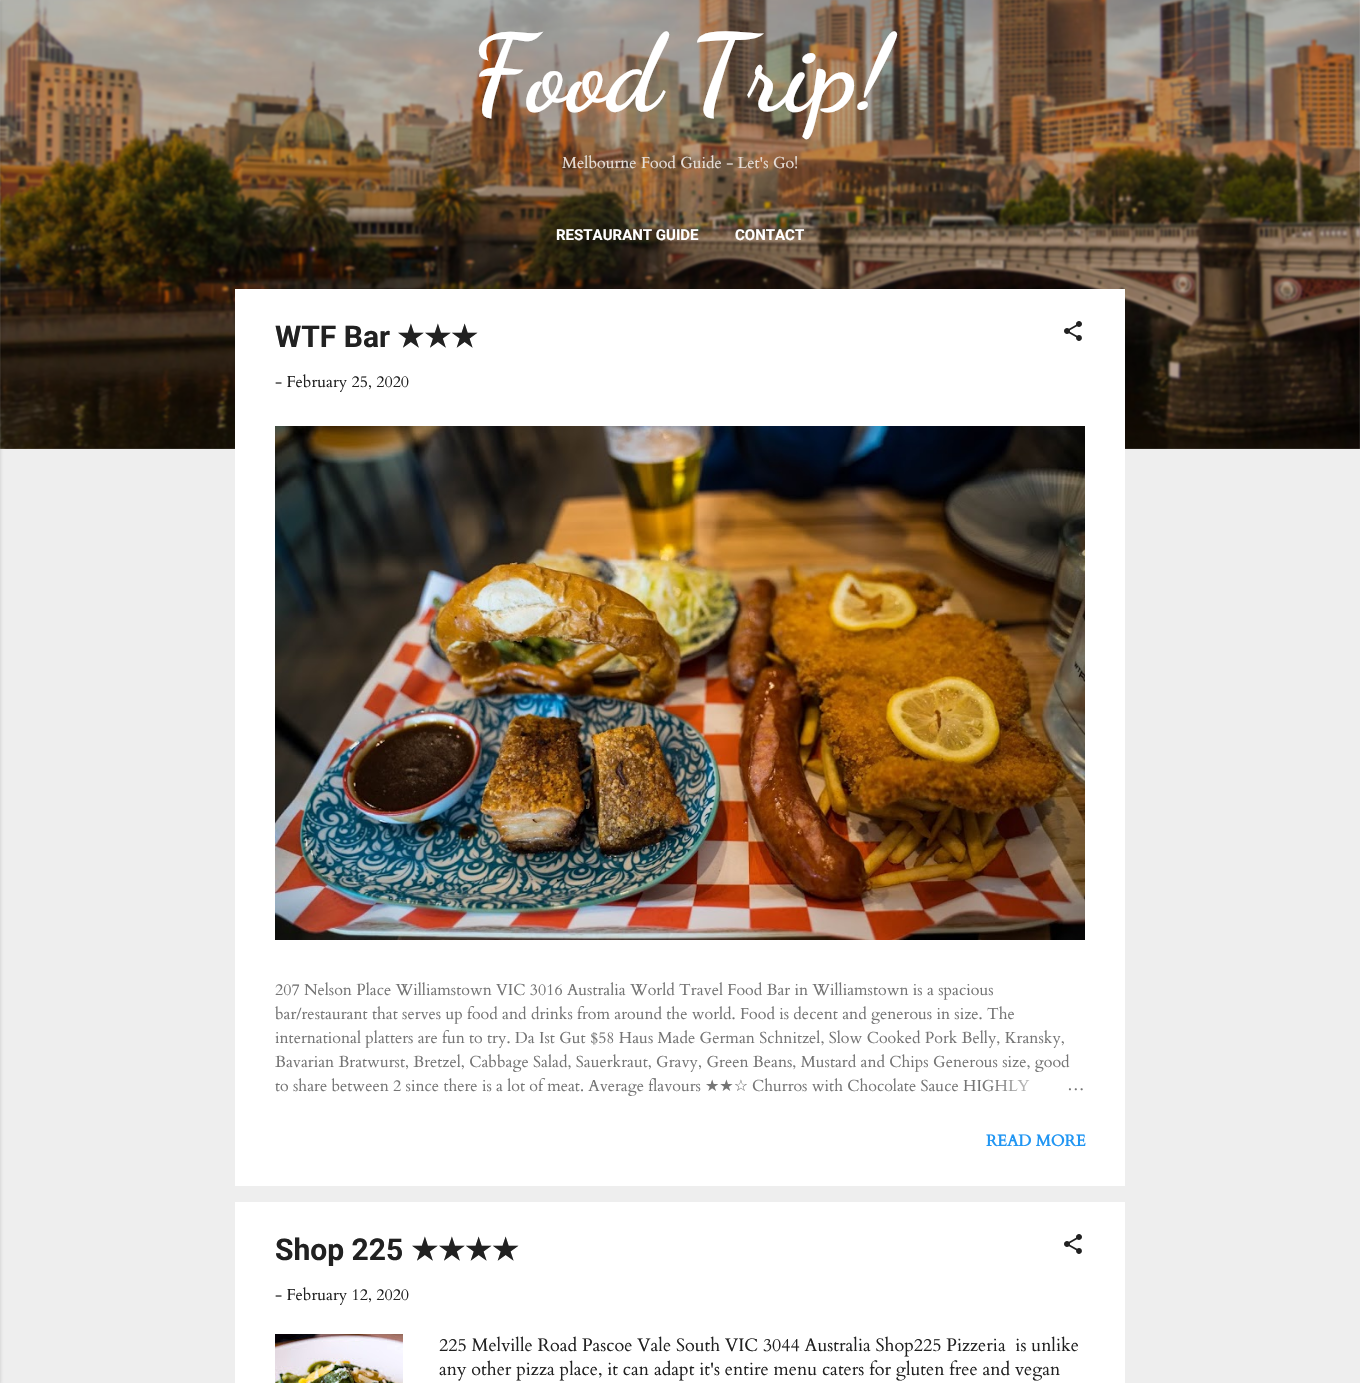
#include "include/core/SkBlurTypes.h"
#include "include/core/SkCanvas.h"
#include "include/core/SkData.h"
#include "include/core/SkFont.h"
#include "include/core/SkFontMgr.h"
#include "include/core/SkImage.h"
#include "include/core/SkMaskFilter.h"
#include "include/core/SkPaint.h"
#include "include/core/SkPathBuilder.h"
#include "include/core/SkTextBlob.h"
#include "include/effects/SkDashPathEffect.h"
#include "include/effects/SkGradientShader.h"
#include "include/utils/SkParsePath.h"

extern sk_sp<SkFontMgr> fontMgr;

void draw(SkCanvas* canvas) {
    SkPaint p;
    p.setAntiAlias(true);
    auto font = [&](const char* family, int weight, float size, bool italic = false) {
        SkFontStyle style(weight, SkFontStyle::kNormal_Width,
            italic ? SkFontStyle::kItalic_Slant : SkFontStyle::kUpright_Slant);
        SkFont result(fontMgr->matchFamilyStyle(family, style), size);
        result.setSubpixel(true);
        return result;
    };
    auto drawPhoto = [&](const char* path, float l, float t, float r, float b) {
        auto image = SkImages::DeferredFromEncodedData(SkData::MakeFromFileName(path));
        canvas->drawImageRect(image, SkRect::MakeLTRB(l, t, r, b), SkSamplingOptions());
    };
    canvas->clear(0xFFEEEEEE);
    drawPhoto("media/1.png", 0, 0, 1360, 449);
    p.setColor(0x1A000000);
    p.setMaskFilter(SkMaskFilter::MakeBlur(kNormal_SkBlurStyle, 1.5f));
    canvas->drawRect(SkRect::MakeLTRB(-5, 1, 1, 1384), p);
    p.setMaskFilter(nullptr);
    auto font1 = font("Dancing Script", 700, 108);
    p.setColor(0xFFFFFFFF);
    canvas->drawString("Food Trip!", 471, 109, font1, p);
    auto font2 = font("Cardo", 400, 16);
    p.setColor(0xFFE6DED8);
    canvas->drawString("Melbourne Food Guide - Let's Go!", 562, 168, font2, p);
    auto font3 = font("Roboto", 700, 15);
    p.setColor(0xFFFFFFFF);
    canvas->drawString("RESTAURANT GUIDE", 556, 240, font3, p);
    canvas->drawString("CONTACT", 735, 240, font3, p);
    canvas->drawRect(SkRect::MakeLTRB(235, 289, 1125, 1186), p);
    auto font4 = font("Roboto", 700, 30);
    p.setColor(0xFF212121);
    canvas->drawString("WTF Bar", 275, 347, font4, p);
    auto font5 = font("DejaVu Sans", 700, 30);
    canvas->drawString("★★★", 397, 347, font5, p);
    drawPhoto("media/2.png", 1064, 321, 1082, 341);
    canvas->drawString("- February 25, 2020", 275, 387, font2, p);
    drawPhoto("media/3.png", 275, 426, 1085, 940);
    p.setColor(0xFF757575);
    {
        const struct { const char* s; float x, y; } items[] = {
            {"207 Nelson Place Williamstown VIC 3016 Australia World Travel Food Bar in Williamstown is a spacious", 275, 995},
            {"bar/restaurant that serves up food and drinks from around the world. Food is decent and generous in size. The", 275, 1019},
            {"international platters are fun to try. Da Ist Gut $58 Haus Made German Schnitzel, Slow Cooked Pork Belly, Kransky,", 275, 1043},
            {"Bavarian Bratwurst, Bretzel, Cabbage Salad, Sauerkraut, Gravy, Green Beans, Mustard and Chips Generous size, good", 275, 1067},
            {"to share between 2 since there is a lot of meat. Average flavours", 275, 1091},
        };
        for (auto [s, x, y] : items) {
            canvas->drawString(s, x, y, font2, p);
        }
    }
    auto font6 = font("DejaVu Sans", 400, 16);
    canvas->drawString("★★☆", 705, 1091, font6, p);
    canvas->drawString("Churros with Chocolate Sauce HIGHLY", 752, 1091, font2, p);
    {
        const SkColor colors[] = {0xFFFFFFFF, 0xFFFFFFFF, 0x00FFFFFF};
        const float stops[] = {0, 0.2f, 1};
        const SkPoint ends[] = {{1085, 1086}, {989, 1086}};
        p.setShader(SkGradientShader::MakeLinear(ends, colors, stops, 3, SkTileMode::kClamp));
        p.setAlpha(255);
    }
    canvas->drawRect(SkRect::MakeLTRB(991, 1080, 1030, 1091), p);
    p.setShader(nullptr);
    p.setColor(0xFF757575);
    canvas->drawString("…", 1067, 1090, font2, p);
    auto font7 = font("Cardo", 700, 16);
    p.setColor(0xFF2196F3);
    canvas->drawString("READ MORE", 986, 1146, font7, p);
    p.setColor(0xFFFFFFFF);
    canvas->drawRect(SkRect::MakeLTRB(235, 1202, 1125, 1383), p);
    p.setColor(0xFF212121);
    canvas->drawString("Shop 225", 275, 1260, font4, p);
    canvas->drawString("★★★★", 411, 1260, font5, p);
    drawPhoto("media/2.png", 1064, 1234, 1082, 1254);
    canvas->drawString("- February 12, 2020", 275, 1300, font2, p);
    drawPhoto("media/4.png", 275, 1334, 403, 1383);
    auto font8 = font("Cardo", 400, 18);
    canvas->drawString("225 Melville Road Pascoe Vale South VIC 3044 Australia Shop225 Pizzeria  is unlike", 439, 1351, font8, p);
    canvas->drawString("any other pizza place, it can adapt it's entire menu caters for gluten free and vegan", 439, 1375, font8, p);
}
